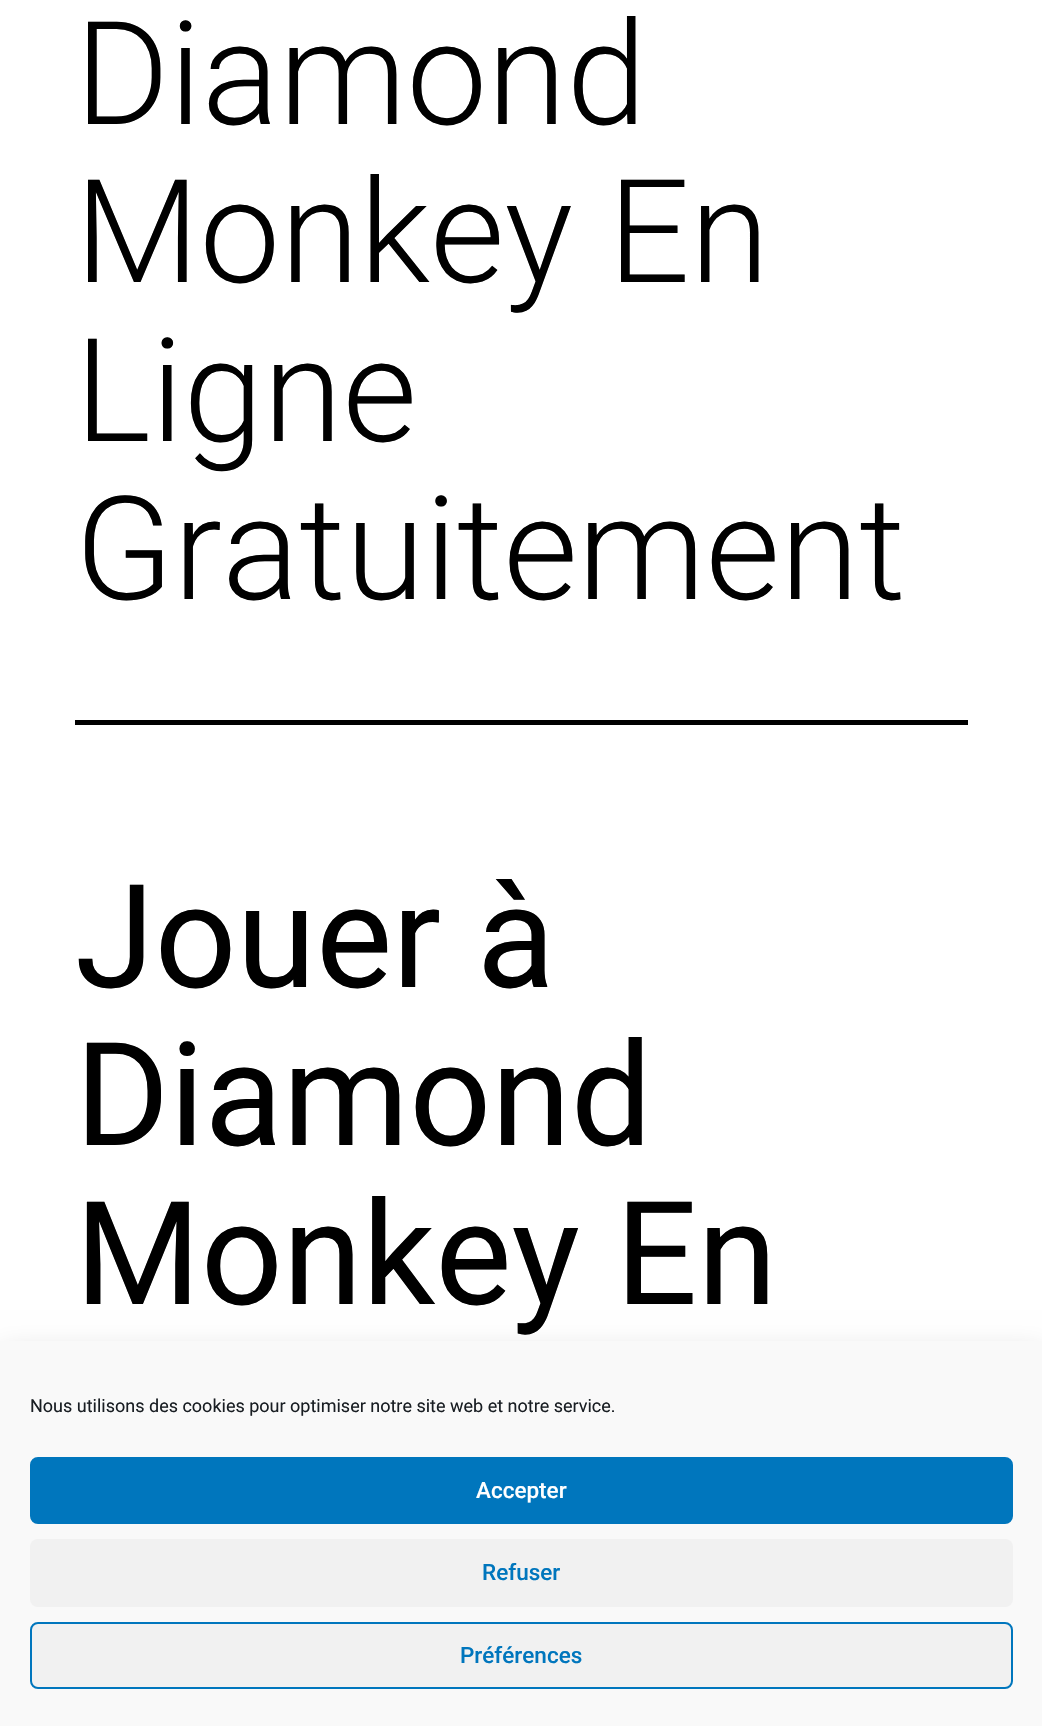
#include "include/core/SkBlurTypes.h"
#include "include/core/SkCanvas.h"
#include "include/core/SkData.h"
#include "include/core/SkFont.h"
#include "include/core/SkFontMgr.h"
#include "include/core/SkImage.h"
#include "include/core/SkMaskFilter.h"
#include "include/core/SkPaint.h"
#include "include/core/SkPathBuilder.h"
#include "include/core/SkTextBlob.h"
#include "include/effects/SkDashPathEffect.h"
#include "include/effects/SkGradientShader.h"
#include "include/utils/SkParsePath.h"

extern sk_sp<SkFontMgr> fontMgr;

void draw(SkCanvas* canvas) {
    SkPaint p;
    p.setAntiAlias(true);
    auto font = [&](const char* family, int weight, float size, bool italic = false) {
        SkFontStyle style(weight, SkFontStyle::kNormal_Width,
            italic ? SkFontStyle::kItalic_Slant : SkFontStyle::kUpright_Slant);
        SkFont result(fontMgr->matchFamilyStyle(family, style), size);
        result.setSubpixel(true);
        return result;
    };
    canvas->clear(0xFFFFFFFF);
    p.setColor(0xFF000000);
    canvas->drawRect(SkRect::MakeLTRB(75, 720, 968, 725), p);
    auto font1 = font("Roboto", 300, 144);
    {
        const struct { const char* s; float x, y; } items[] = {
            {"Diamond", 75, 124},
            {"Monkey En", 75, 282},
            {"Ligne", 75, 441},
            {"Gratuitement", 75, 599},
        };
        for (auto [s, x, y] : items) {
            canvas->drawString(s, x, y, font1, p);
        }
    }
    auto font2 = font("Roboto", 400, 144);
    {
        const struct { const char* s; float x, y; } items[] = {
            {"Jouer à", 75, 987},
            {"Diamond", 75, 1145},
            {"Monkey En", 75, 1304},
        };
        for (auto [s, x, y] : items) {
            canvas->drawString(s, x, y, font2, p);
        }
    }
    p.setColor(0x30000000);
    p.setMaskFilter(SkMaskFilter::MakeBlur(kNormal_SkBlurStyle, 15));
    canvas->drawRect(SkRect::MakeLTRB(0, 1355, 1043, 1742), p);
    p.setMaskFilter(nullptr);
    p.setColor(0xFFF9F9F9);
    canvas->drawRect(SkRect::MakeLTRB(0, 1341, 1042, 1726), p);
    auto font3 = font("Roboto", 400, 18);
    p.setColor(0xFF191E23);
    canvas->drawString("Nous utilisons des cookies pour optimiser notre site web et notre service.", 30, 1412, font3, p);
    p.setColor(0xFF0076BD);
    canvas->drawRoundRect(SkRect::MakeLTRB(31, 1458, 1012, 1523), 7, 7, p);
    p.setStyle(SkPaint::kStroke_Style);
    p.setStrokeWidth(2);
    canvas->drawRoundRect(SkRect::MakeLTRB(31, 1458, 1012, 1523), 7, 7, p);
    auto font4 = font("Roboto", 500, 22.5f);
    p.setStyle(SkPaint::kFill_Style);
    p.setColor(0xFFFFFFFF);
    canvas->drawString("Accepter", 476, 1498, font4, p);
    p.setColor(0xFFF1F1F1);
    canvas->drawRoundRect(SkRect::MakeLTRB(30, 1539, 1013, 1607), 8, 8, p);
    p.setColor(0xFF0076BD);
    canvas->drawString("Refuser", 482, 1580, font4, p);
    p.setColor(0xFFF1F1F1);
    canvas->drawRoundRect(SkRect::MakeLTRB(31, 1623, 1012, 1688), 7, 7, p);
    p.setStyle(SkPaint::kStroke_Style);
    p.setColor(0xFF0076BD);
    canvas->drawRoundRect(SkRect::MakeLTRB(31, 1623, 1012, 1688), 7, 7, p);
    p.setStyle(SkPaint::kFill_Style);
    canvas->drawString("Préférences", 460, 1663, font4, p);
}
